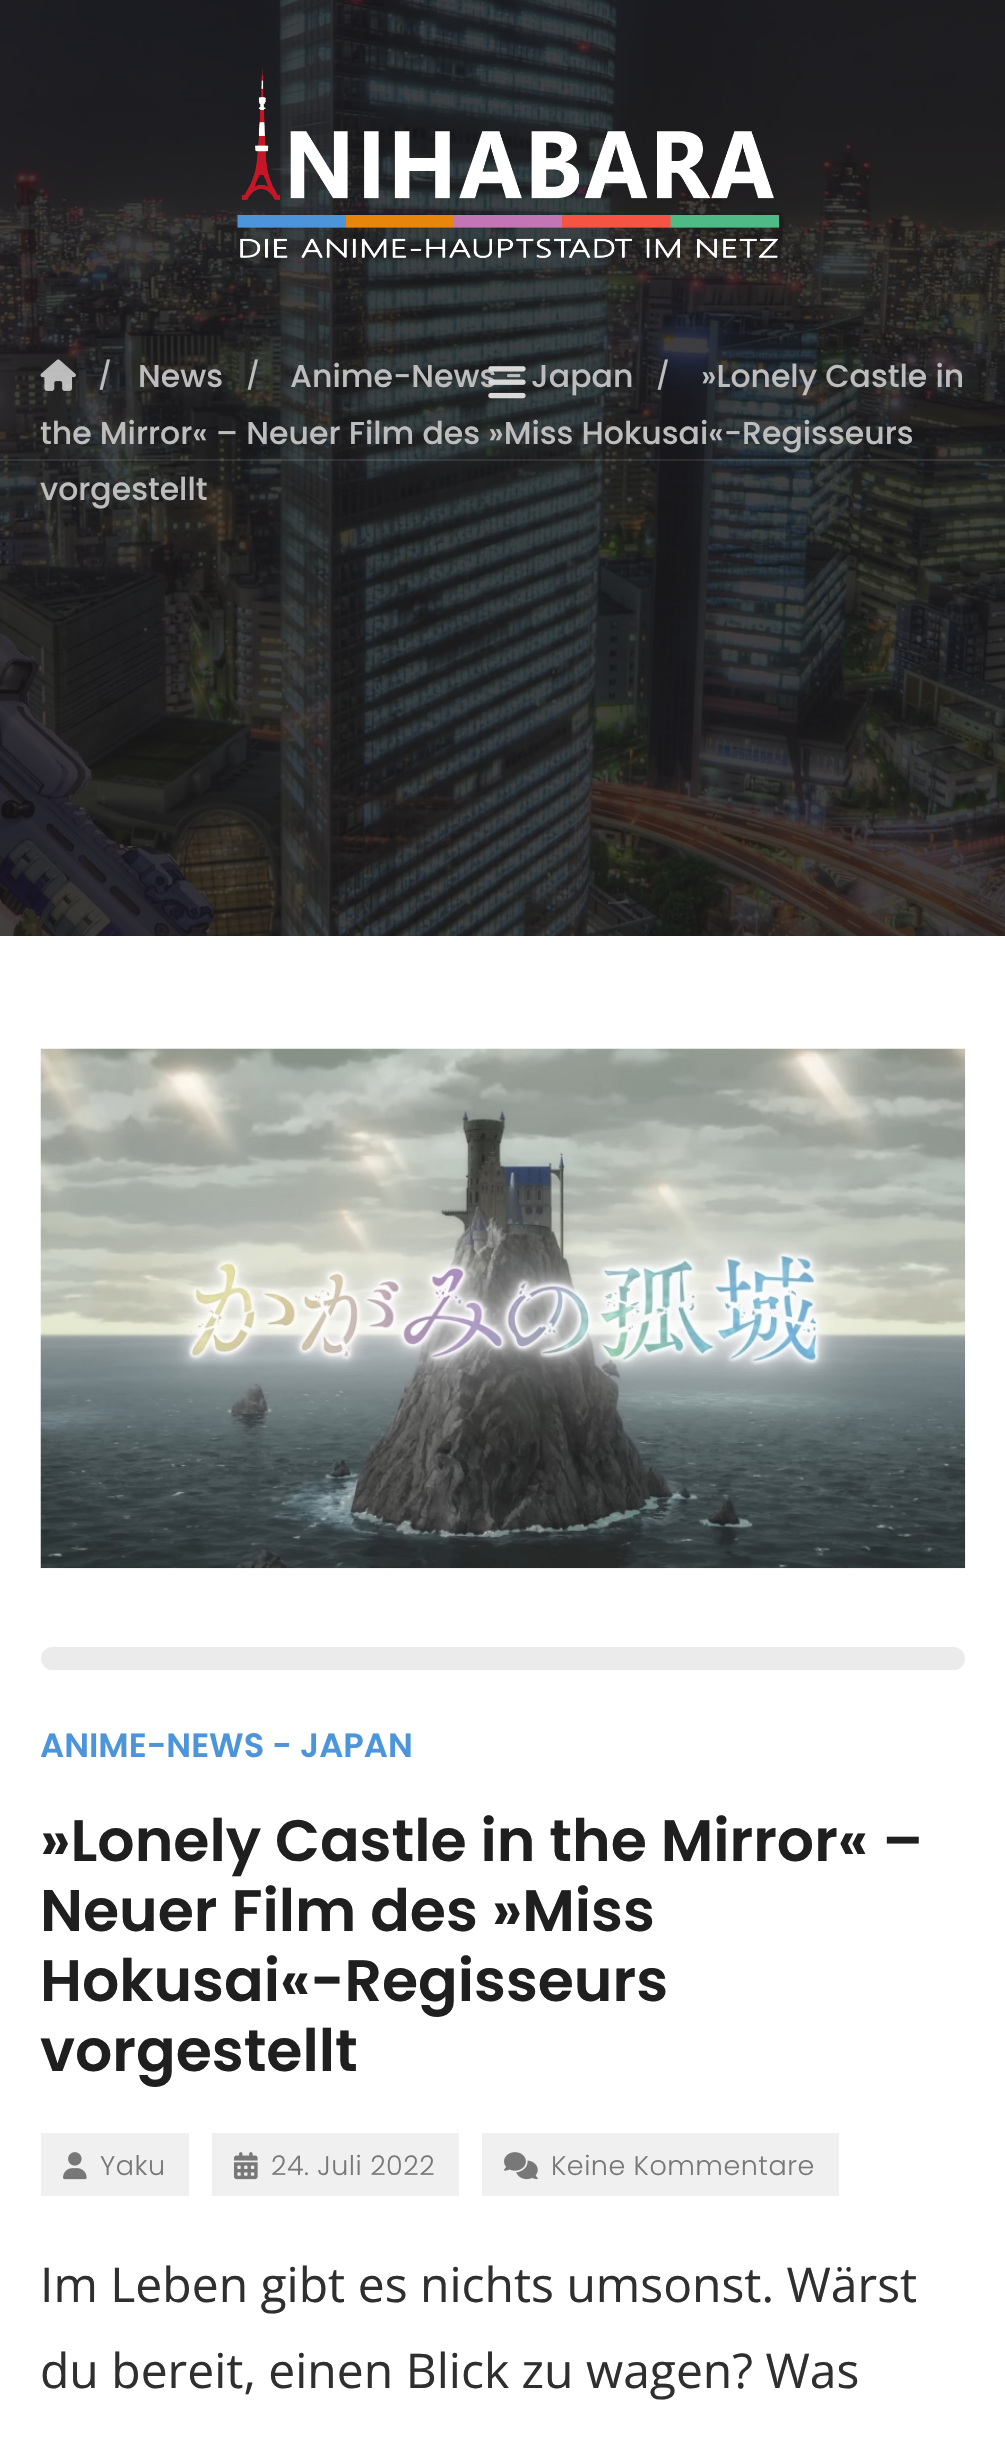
#include "include/core/SkBlurTypes.h"
#include "include/core/SkCanvas.h"
#include "include/core/SkData.h"
#include "include/core/SkFont.h"
#include "include/core/SkFontMgr.h"
#include "include/core/SkImage.h"
#include "include/core/SkMaskFilter.h"
#include "include/core/SkPaint.h"
#include "include/core/SkPathBuilder.h"
#include "include/core/SkTextBlob.h"
#include "include/effects/SkDashPathEffect.h"
#include "include/effects/SkGradientShader.h"
#include "include/utils/SkParsePath.h"

extern sk_sp<SkFontMgr> fontMgr;

void draw(SkCanvas* canvas) {
    SkPaint p;
    p.setAntiAlias(true);
    auto font = [&](const char* family, int weight, float size, bool italic = false) {
        SkFontStyle style(weight, SkFontStyle::kNormal_Width,
            italic ? SkFontStyle::kItalic_Slant : SkFontStyle::kUpright_Slant);
        SkFont result(fontMgr->matchFamilyStyle(family, style), size);
        result.setSubpixel(true);
        return result;
    };
    auto drawTracked = [&](const char* s, float x, float y, const SkFont& font, const SkPaint& ink, float letter, float word) {
        std::vector<SkGlyphID> glyphs(font.countText(s, strlen(s), SkTextEncoding::kUTF8));
        std::vector<float> xs(glyphs.size());
        font.textToGlyphs(s, strlen(s), SkTextEncoding::kUTF8, glyphs);
        font.getXPos(glyphs, xs, x);
        float extra = 0;
        for (size_t i = 0; i < glyphs.size(); i++) {
            xs[i] += extra;
            extra += letter + word * (glyphs[i] == font.unicharToGlyph(' '));
        }
        canvas->drawTextBlob(SkTextBlob::MakeFromPosHGlyphs(glyphs, xs, y, font), 0, 0, ink);
    };
    auto drawPhoto = [&](const char* path, float l, float t, float r, float b) {
        auto image = SkImages::DeferredFromEncodedData(SkData::MakeFromFileName(path));
        canvas->drawImageRect(image, SkRect::MakeLTRB(l, t, r, b), SkSamplingOptions());
    };
    canvas->clear(0xFFFFFFFF);
    drawPhoto("media/3.png", 0, 0, 1005, 936);
    drawPhoto("media/1.png", 237, 68, 779, 258);
    auto font1 = font("Poppins", 500, 31.5f);
    p.setColor(0xFFBDBDBD);
    canvas->drawString("Anime-News - Japan", 290, 387, font1, p);
    drawPhoto("media/2.png", 488, 366, 526, 399);
    p.setColor(0x17FFFFFF);
    canvas->drawRect(SkRect::MakeLTRB(0, 459, 1005, 461), p);
    drawPhoto("media/4.png", 40, 359, 76, 391);
    auto font2 = font("Poppins", 500, 27);
    p.setColor(0xFFBDBDBD);
    canvas->drawString("/", 98, 385, font2, p);
    canvas->drawString("News", 138, 387, font1, p);
    canvas->drawString("/", 246, 385, font2, p);
    canvas->drawString("/", 656, 385, font2, p);
    {
        const struct { const char* s; float x, y; } items[] = {
            {"»Lonely Castle in", 701, 387},
            {"the Mirror« – Neuer Film des »Miss Hokusai«-Regisseurs", 40, 444},
            {"vorgestellt", 40, 500},
        };
        for (auto [s, x, y] : items) {
            canvas->drawString(s, x, y, font1, p);
        }
    }
    drawPhoto("media/5.png", 40, 1048, 966, 1569);
    p.setColor(0xFFEBEBEB);
    canvas->drawRoundRect(SkRect::MakeLTRB(41, 1647, 965, 1670), 11.5f, 11.5f, p);
    auto font3 = font("Poppins", 600, 33.75f);
    p.setColor(0xFF4D95DA);
    canvas->drawString("ANIME-NEWS - JAPAN", 40, 1757, font3, p);
    auto font4 = font("Poppins", 600, 58.5f);
    p.setColor(0xFF1F1F1F);
    {
        const struct { const char* s; float x, y; } items[] = {
            {"»Lonely Castle in the Mirror« –", 40, 1861},
            {"Neuer Film des »Miss", 40, 1931},
            {"Hokusai«-Regisseurs", 40, 2001},
            {"vorgestellt", 40, 2071},
        };
        for (auto [s, x, y] : items) {
            canvas->drawString(s, x, y, font4, p);
        }
    }
    p.setColor(0xFFF0F0F0);
    canvas->drawRect(SkRect::MakeLTRB(41, 2133, 189, 2196), p);
    drawPhoto("media/6.png", 63, 2152, 87, 2180);
    auto font5 = font("Poppins", 300, 27);
    p.setColor(0xFF787879);
    drawTracked("Yaku", 100, 2175, font5, p, 0.5f, 0);
    p.setColor(0xFFF0F0F0);
    canvas->drawRect(SkRect::MakeLTRB(212, 2133, 459, 2196), p);
    drawPhoto("media/7.png", 234, 2152, 258, 2180);
    p.setColor(0xFF787879);
    drawTracked("24. Juli 2022", 271, 2175, font5, p, 0.5f, 0);
    p.setColor(0xFFF0F0F0);
    canvas->drawRect(SkRect::MakeLTRB(482, 2133, 839, 2196), p);
    drawPhoto("media/8.png", 504, 2152, 538, 2180);
    p.setColor(0xFF787879);
    drawTracked("Keine Kommentare", 551, 2175, font5, p, 0.5f, 0);
    auto font6 = font("Open Sans", 400, 48);
    p.setColor(0xFF2F2F2F);
    canvas->drawString("Im Leben gibt es nichts umsonst. Wärst", 40, 2302, font6, p);
    canvas->drawString("du bereit, einen Blick zu wagen? Was", 40, 2388, font6, p);
}
